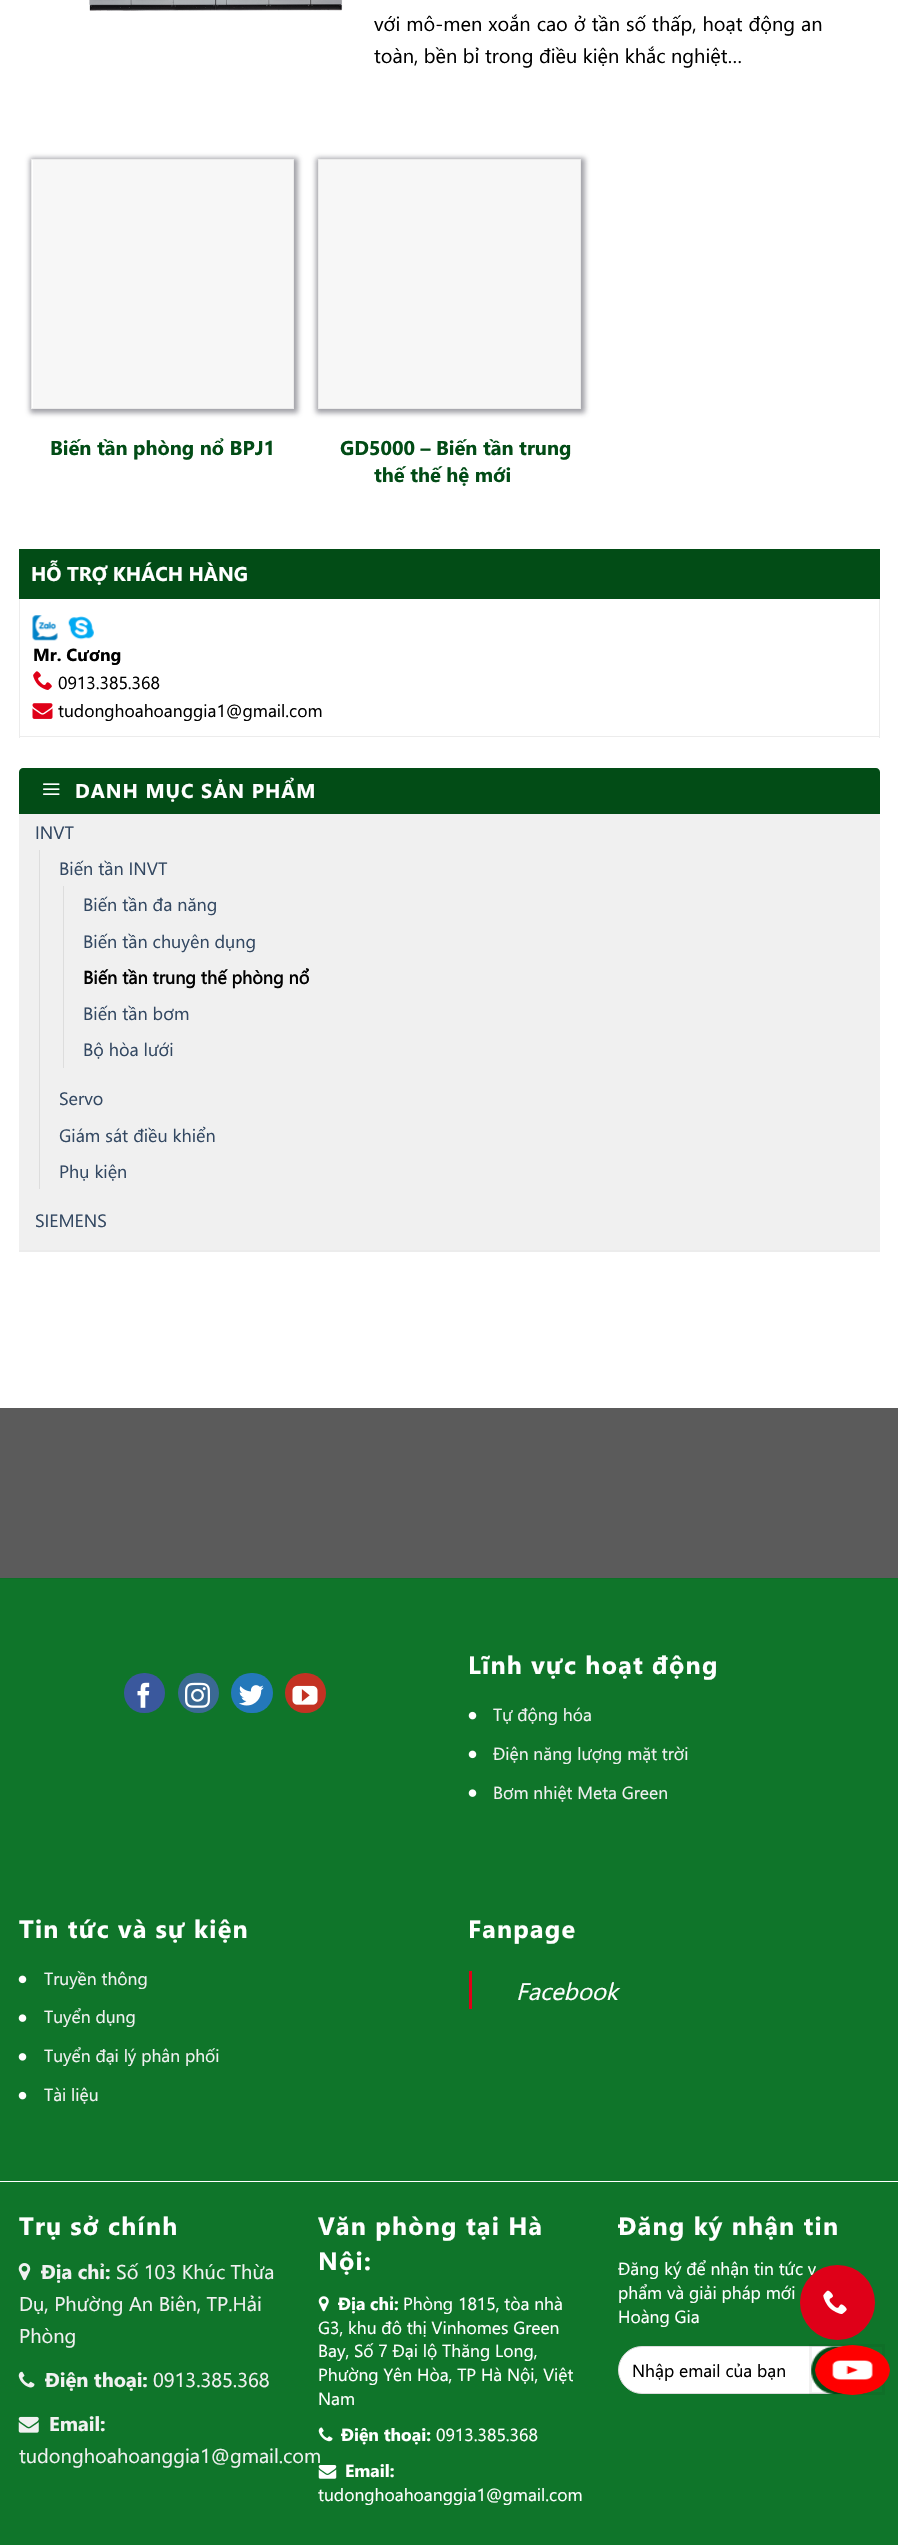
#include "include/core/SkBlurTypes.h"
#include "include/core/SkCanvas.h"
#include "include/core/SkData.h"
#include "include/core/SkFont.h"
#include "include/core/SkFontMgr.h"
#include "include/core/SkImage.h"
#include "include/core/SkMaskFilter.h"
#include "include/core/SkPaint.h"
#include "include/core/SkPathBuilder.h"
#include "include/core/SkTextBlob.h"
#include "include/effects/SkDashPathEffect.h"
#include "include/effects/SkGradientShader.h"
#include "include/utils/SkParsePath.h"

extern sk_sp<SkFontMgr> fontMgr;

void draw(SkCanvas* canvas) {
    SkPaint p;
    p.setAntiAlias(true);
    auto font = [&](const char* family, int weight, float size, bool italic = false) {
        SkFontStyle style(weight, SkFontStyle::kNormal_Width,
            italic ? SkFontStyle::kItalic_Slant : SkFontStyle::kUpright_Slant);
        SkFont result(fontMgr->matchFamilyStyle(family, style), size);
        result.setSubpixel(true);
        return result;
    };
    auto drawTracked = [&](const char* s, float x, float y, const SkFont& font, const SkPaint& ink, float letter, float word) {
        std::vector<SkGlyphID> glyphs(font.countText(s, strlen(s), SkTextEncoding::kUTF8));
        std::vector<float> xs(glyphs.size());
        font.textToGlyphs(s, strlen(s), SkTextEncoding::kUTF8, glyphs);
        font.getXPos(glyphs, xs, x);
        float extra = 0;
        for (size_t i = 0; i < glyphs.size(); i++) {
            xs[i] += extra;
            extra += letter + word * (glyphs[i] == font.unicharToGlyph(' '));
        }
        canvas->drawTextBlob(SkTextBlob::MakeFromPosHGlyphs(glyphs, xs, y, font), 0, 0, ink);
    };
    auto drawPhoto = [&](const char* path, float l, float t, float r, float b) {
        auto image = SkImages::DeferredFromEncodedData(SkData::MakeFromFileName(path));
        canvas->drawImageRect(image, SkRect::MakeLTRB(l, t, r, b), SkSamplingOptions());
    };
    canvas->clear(0xFF5B5B5B);
    p.setColor(0xFFFFFFFF);
    canvas->drawRect(SkRect::MakeLTRB(0, 0, 898, 1408), p);
    drawPhoto("media/1.png", 89, 0, 343, 11);
    auto font1 = font("Segoe UI", 400, 20);
    p.setColor(0xFF000000);
    drawTracked("với mô-men xoắn cao ở tần số thấp, hoạt động an", 374, 31, font1, p, 0, 0.5f);
    canvas->drawString("toàn, bền bỉ trong điều kiện khắc nghiệt…", 374, 63, font1, p);
    p.setColor(0xCC8A8A91);
    p.setMaskFilter(SkMaskFilter::MakeBlur(kNormal_SkBlurStyle, 2.5f));
    canvas->drawRect(SkRect::MakeLTRB(30, 158, 298, 413), p);
    p.setMaskFilter(nullptr);
    p.setColor(0xFFFFFFFF);
    canvas->drawRect(SkRect::MakeLTRB(32, 160, 33, 408), p);
    p.setStyle(SkPaint::kStroke_Style);
    p.setStrokeWidth(1);
    p.setColor(0xFFECECEC);
    canvas->drawRect(SkRect::MakeLTRB(31.5f, 159.5f, 293.5f, 408.5f), p);
    p.setStyle(SkPaint::kFill_Style);
    p.setColor(0xFFF7F7F7);
    canvas->drawRect(SkRect::MakeLTRB(33, 160, 293, 408), p);
    auto font2 = font("Segoe UI", 700, 20);
    p.setColor(0xFF024C16);
    canvas->drawString("Biến tần phòng nổ BPJ1", 50, 455, font2, p);
    p.setColor(0xCC8A8A91);
    p.setMaskFilter(SkMaskFilter::MakeBlur(kNormal_SkBlurStyle, 2.5f));
    canvas->drawRect(SkRect::MakeLTRB(316, 158, 585, 413), p);
    p.setMaskFilter(nullptr);
    p.setStyle(SkPaint::kStroke_Style);
    p.setColor(0xFFECECEC);
    canvas->drawRect(SkRect::MakeLTRB(318.5f, 159.5f, 580.5f, 408.5f), p);
    p.setStyle(SkPaint::kFill_Style);
    p.setColor(0xFFF7F7F7);
    canvas->drawRect(SkRect::MakeLTRB(319, 160, 580, 408), p);
    p.setColor(0xFF024C16);
    canvas->drawString("GD5000 – Biến tần trung", 340, 455, font2, p);
    canvas->drawString("thế thế hệ mới", 374, 482, font2, p);
    canvas->drawRect(SkRect::MakeLTRB(19, 549, 880, 599), p);
    p.setColor(0xFFFFFFFF);
    canvas->drawString("HỖ TRỢ KHÁCH HÀNG", 31, 581, font2, p);
    {
        const struct { float l, t, r, b; SkColor color; } items[] = {
            {879, 599, 880, 738, 0xFFECECEC},
            {19, 736, 880, 737, 0xFFECECEC},
            {19, 599, 20, 738, 0xFFECECEC},
        };
        for (auto [l, t, r, b, color] : items) {
            p.setColor(color);
            canvas->drawRect(SkRect::MakeLTRB(l, t, r, b), p);
        }
    }
    drawPhoto("media/2.png", 32, 615, 58, 641);
    drawPhoto("media/3.png", 68, 616, 94, 640);
    auto font3 = font("Segoe UI", 700, 17.5f);
    p.setColor(0xFF000000);
    canvas->drawString("Mr. Cương", 33, 661, font3, p);
    drawPhoto("media/4.png", 33, 671, 52, 690);
    auto font4 = font("Segoe UI", 400, 17.5f);
    canvas->drawString("0913.385.368", 58, 689, font4, p);
    drawPhoto("media/5.png", 32, 703, 53, 719);
    canvas->drawString("tudonghoahoanggia1@gmail.com", 58, 717, font4, p);
    p.setColor(0xFF024C16);
    canvas->drawPath(SkPathBuilder().moveTo(23, 768).lineTo(876, 768).cubicTo(878, 768, 880, 770, 880, 772).lineTo(880, 814).lineTo(19, 814).lineTo(19, 772).cubicTo(19, 770, 21, 768, 23, 768).close().detach(), p);
    drawPhoto("media/6.png", 43, 783, 60, 795);
    p.setColor(0xFFFFFFFF);
    drawTracked("DANH MỤC SẢN PHẨM", 75, 798, font2, p, 1, 0);
    p.setColor(0xFFF0F0F0);
    canvas->drawRect(SkRect::MakeLTRB(19, 814, 880, 1250), p);
    auto font5 = font("Segoe UI", 400, 18);
    p.setColor(0xFF334862);
    canvas->drawString("INVT", 35, 839, font5, p);
    p.setColor(0xFFDDDDDD);
    canvas->drawRect(SkRect::MakeLTRB(39, 850, 40, 1189), p);
    p.setColor(0xFF334862);
    canvas->drawString("Biến tần INVT", 59, 875, font5, p);
    p.setColor(0xFFDDDDDD);
    canvas->drawRect(SkRect::MakeLTRB(63, 886, 64, 1068), p);
    p.setColor(0xFF334862);
    canvas->drawString("Biến tần đa năng", 83, 911, font5, p);
    canvas->drawString("Biến tần chuyên dụng", 83, 948, font5, p);
    auto font6 = font("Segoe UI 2", 700, 18);
    p.setColor(0xFF000000);
    canvas->drawString("Biến tần trung thế phòng nổ", 83, 984, font6, p);
    p.setColor(0xFF334862);
    {
        const struct { const char* s; float x, y; } items[] = {
            {"Biến tần bơm", 83, 1020},
            {"Bộ hòa lưới", 83, 1056},
            {"Servo", 59, 1105},
            {"Giám sát điều khiển", 59, 1142},
            {"Phụ kiện", 59, 1178},
            {"SIEMENS", 35, 1227},
        };
        for (auto [s, x, y] : items) {
            canvas->drawString(s, x, y, font5, p);
        }
    }
    {
        const struct { float l, t, r, b; SkColor color; } items[] = {
            {19, 1250, 880, 1252, 0xFFECECEC},
            {0, 1579, 898, 2545, 0xFF0F752A},
            {0, 1578, 898, 1579, 0xFF0E6F28},
            {0, 2181, 898, 2182, 0xFFFFFFFF},
        };
        for (auto [l, t, r, b, color] : items) {
            p.setColor(color);
            canvas->drawRect(SkRect::MakeLTRB(l, t, r, b), p);
        }
    }
    p.setColor(0xFF3A589D);
    canvas->drawRoundRect(SkRect::MakeLTRB(124, 1673, 165, 1713), 20, 20, p);
    drawPhoto("media/7.png", 137, 1682, 150, 1708);
    p.setColor(0xFF3B6994);
    canvas->drawRoundRect(SkRect::MakeLTRB(178, 1673, 219, 1713), 20, 20, p);
    drawPhoto("media/8.png", 185, 1682, 210, 1708);
    p.setColor(0xFF2478BA);
    canvas->drawRoundRect(SkRect::MakeLTRB(231, 1673, 273, 1713), 20, 20, p);
    drawPhoto("media/9.png", 239, 1685, 264, 1706);
    p.setColor(0xFFC33223);
    canvas->drawRoundRect(SkRect::MakeLTRB(285, 1673, 326, 1713), 20, 20, p);
    drawPhoto("media/10.png", 292, 1685, 318, 1705);
    auto font7 = font("Segoe UI", 700, 25);
    p.setColor(0xFFFFFFFF);
    drawTracked("Lĩnh vực hoạt động", 468, 1674, font7, p, 1.25f, 0);
    drawPhoto("media/11.png", 468, 1711, 477, 1720);
    p.setColor(0xFFF1F1F1);
    canvas->drawString("Tự động hóa", 493, 1721, font4, p);
    drawPhoto("media/12.png", 468, 1750, 477, 1759);
    canvas->drawString("Điện năng lượng mặt trời", 493, 1760, font4, p);
    drawPhoto("media/13.png", 468, 1789, 477, 1797);
    canvas->drawString("Bơm nhiệt Meta Green", 493, 1799, font4, p);
    p.setColor(0xFFFFFFFF);
    drawTracked("Tin tức và sự kiện", 19, 1938, font7, p, 1.25f, 0);
    drawPhoto("media/12.png", 18, 1975, 27, 1984);
    p.setColor(0xFFF1F1F1);
    canvas->drawString("Truyền thông", 44, 1985, font4, p);
    drawPhoto("media/13.png", 18, 2014, 27, 2022);
    canvas->drawString("Tuyển dụng", 44, 2023, font4, p);
    drawPhoto("media/14.png", 18, 2053, 27, 2061);
    canvas->drawString("Tuyển đại lý phân phối", 44, 2062, font4, p);
    drawPhoto("media/11.png", 18, 2091, 27, 2100);
    canvas->drawString("Tài liệu", 44, 2101, font4, p);
    p.setColor(0xFFFFFFFF);
    drawTracked("Fanpage", 468, 1938, font7, p, 1.25f, 0);
    p.setColor(0xFFDF0018);
    canvas->drawRect(SkRect::MakeLTRB(469, 1971, 472, 2009), p);
    auto font8 = font("Segoe UI", 400, 24, true);
    p.setColor(0xFFFFFFFF);
    canvas->drawString("Facebook", 516, 2000, font8, p);
    drawTracked("Trụ sở chính", 19, 2235, font7, p, 1.25f, 0);
    drawPhoto("media/15.png", 18, 2263, 31, 2281);
    p.setColor(0xFFF1F1F1);
    canvas->drawString("Địa chỉ:", 41, 2279, font2, p);
    {
        const struct { const char* s; float x, y; } items[] = {
            {"Số 103 Khúc Thừa", 116, 2279},
            {"Dụ, Phường An Biên, TP.Hải", 19, 2311},
            {"Phòng", 19, 2343},
        };
        for (auto [s, x, y] : items) {
            canvas->drawString(s, x, y, font1, p);
        }
    }
    drawPhoto("media/16.png", 18, 2371, 35, 2388);
    canvas->drawString("Điện thoại:", 45, 2387, font2, p);
    canvas->drawString("0913.385.368", 153, 2387, font1, p);
    drawPhoto("media/17.png", 18, 2416, 39, 2433);
    canvas->drawString("Email:", 49, 2431, font2, p);
    canvas->drawString("tudonghoahoanggia1@gmail.com", 19, 2463, font1, p);
    p.setColor(0xFFFFFFFF);
    drawTracked("Văn phòng tại Hà", 318, 2235, font7, p, 1.25f, 0);
    drawTracked("Nội:", 318, 2270, font7, p, 1.25f, 0);
    drawPhoto("media/18.png", 318, 2296, 329, 2312);
    canvas->drawString("Địa chỉ:", 338, 2310, font3, p);
    {
        const struct { const char* s; float x, y; } items[] = {
            {"Phòng 1815, tòa nhà", 403, 2310},
            {"G3, khu đô thị Vinhomes Green", 318, 2334},
            {"Bay, Số 7 Đại lộ Thăng Long,", 318, 2357},
            {"Phường Yên Hòa, TP Hà Nội, Việt", 318, 2381},
            {"Nam", 318, 2405},
        };
        for (auto [s, x, y] : items) {
            canvas->drawString(s, x, y, font4, p);
        }
    }
    drawPhoto("media/19.png", 318, 2427, 333, 2442);
    canvas->drawString("Điện thoại:", 341, 2441, font3, p);
    canvas->drawString("0913.385.368", 436, 2441, font4, p);
    drawPhoto("media/20.png", 318, 2465, 337, 2479);
    canvas->drawString("Email:", 345, 2477, font3, p);
    canvas->drawString("tudonghoahoanggia1@gmail.com", 318, 2501, font4, p);
    drawTracked("Đăng ký nhận tin", 618, 2235, font7, p, 1.25f, 0);
    {
        const struct { const char* s; float x, y; } items[] = {
            {"Đăng ký để nhận tin tức v", 618, 2275},
            {"phẩm và giải pháp mới", 618, 2299},
            {"Hoàng Gia", 618, 2323},
        };
        for (auto [s, x, y] : items) {
            canvas->drawString(s, x, y, font4, p);
        }
    }
    canvas->drawRoundRect(SkRect::MakeLTRB(618.5f, 2346.5f, 879.5f, 2393.5f), 23.5f, 23.5f, p);
    p.setStyle(SkPaint::kStroke_Style);
    p.setColor(0xFFDDDDDD);
    canvas->drawRoundRect(SkRect::MakeLTRB(618.5f, 2346.5f, 879.5f, 2393.5f), 23.5f, 23.5f, p);
    p.setStyle(SkPaint::kFill_Style);
    p.setColor(0xFF000000);
    canvas->drawString("Nhập email của bạn", 632, 2377, font4, p);
    drawPhoto("media/21.png", 811, 2346, 874, 2394);
    p.setStyle(SkPaint::kStroke_Style);
    p.setStrokeWidth(3);
    p.setColor(0x0D000000);
    canvas->drawRect(SkRect::MakeLTRB(810.5f, 2345.5f, 883.5f, 2393.5f), p);
    p.setStyle(SkPaint::kFill_Style);
    p.setColor(0xFFDF0018);
    canvas->drawCircle(837.5f, 2302.5f, 37.5f, p);
    drawPhoto("media/22.png", 823, 2290, 847, 2314);
    drawPhoto("media/23.png", 815, 2345, 890, 2395);
}
